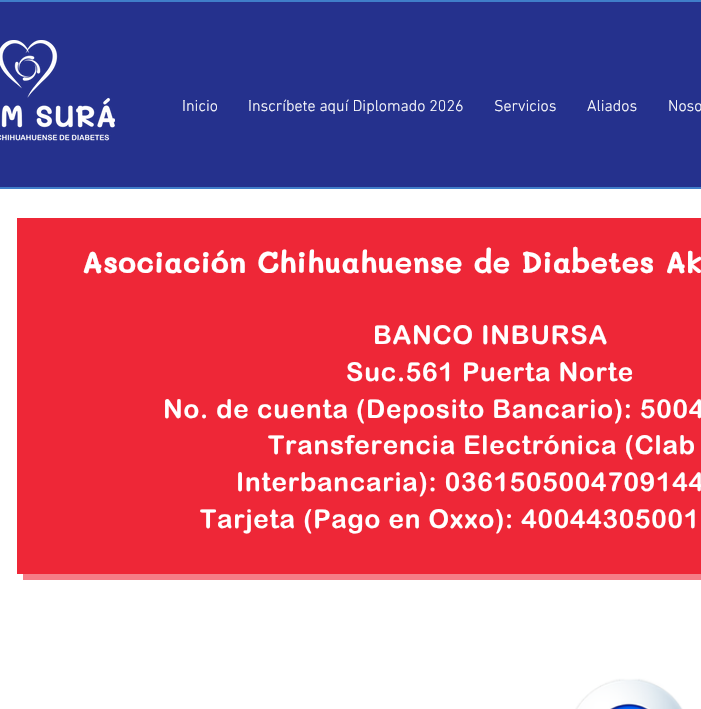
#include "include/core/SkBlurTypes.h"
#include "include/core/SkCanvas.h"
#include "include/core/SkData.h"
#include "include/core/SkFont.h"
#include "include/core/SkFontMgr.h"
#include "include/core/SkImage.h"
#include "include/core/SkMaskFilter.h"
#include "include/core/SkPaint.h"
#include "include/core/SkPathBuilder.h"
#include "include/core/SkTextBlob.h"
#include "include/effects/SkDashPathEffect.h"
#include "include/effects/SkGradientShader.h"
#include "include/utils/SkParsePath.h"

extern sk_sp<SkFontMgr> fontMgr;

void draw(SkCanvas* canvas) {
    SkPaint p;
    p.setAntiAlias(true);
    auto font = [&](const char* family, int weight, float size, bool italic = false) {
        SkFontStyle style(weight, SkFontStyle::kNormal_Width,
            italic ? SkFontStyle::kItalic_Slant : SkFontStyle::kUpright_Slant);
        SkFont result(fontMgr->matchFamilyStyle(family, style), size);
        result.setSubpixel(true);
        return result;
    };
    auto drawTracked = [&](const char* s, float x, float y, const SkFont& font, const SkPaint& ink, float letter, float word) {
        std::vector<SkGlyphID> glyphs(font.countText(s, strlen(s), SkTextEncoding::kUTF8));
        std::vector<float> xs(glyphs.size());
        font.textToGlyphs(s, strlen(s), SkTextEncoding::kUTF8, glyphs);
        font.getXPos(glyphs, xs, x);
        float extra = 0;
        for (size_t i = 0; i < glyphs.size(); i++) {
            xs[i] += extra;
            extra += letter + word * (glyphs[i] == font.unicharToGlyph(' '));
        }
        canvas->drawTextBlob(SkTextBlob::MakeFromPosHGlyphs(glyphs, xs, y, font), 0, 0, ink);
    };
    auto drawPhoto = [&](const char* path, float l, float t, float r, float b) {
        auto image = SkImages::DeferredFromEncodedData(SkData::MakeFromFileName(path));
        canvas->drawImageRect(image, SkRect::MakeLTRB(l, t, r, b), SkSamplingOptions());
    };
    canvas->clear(0xFFFFFFFF);
    {
        const struct { float l, t, r, b; SkColor color; } items[] = {
            {0, 0, 701, 2, 0xFF407EC9},
            {0, 187, 701, 189, 0xFF407EC9},
            {0, 2, 701, 187, 0xFF25318D},
        };
        for (auto [l, t, r, b, color] : items) {
            p.setColor(color);
            canvas->drawRect(SkRect::MakeLTRB(l, t, r, b), p);
        }
    }
    drawPhoto("media/1.png", 0, 40, 115, 141);
    auto font1 = font("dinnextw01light", 300, 16);
    p.setColor(0xFFFFFFFF);
    {
        const struct { const char* s; float x, y; } items[] = {
            {"Inicio", 182, 111},
            {"Inscríbete aquí Diplomado 2026", 248, 111},
            {"Servicios", 494, 111},
            {"Aliados", 587, 111},
            {"Noso", 668, 111},
        };
        for (auto [s, x, y] : items) {
            canvas->drawString(s, x, y, font1, p);
        }
    }
    p.setColor(0xFFF57D87);
    canvas->drawPath(SkPathBuilder().moveTo(23, 574).lineTo(23, 580).lineTo(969, 580).lineTo(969, 224).lineTo(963, 224).lineTo(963, 574).close().detach(), p);
    p.setColor(0xFFEE2737);
    canvas->drawRect(SkRect::MakeLTRB(17, 218, 701, 574), p);
    auto font2 = font("Mali", 700, 30);
    p.setColor(0xFFFFFFFF);
    canvas->drawString("Asociación Chihuahuense de Diabetes Ak", 82, 273, font2, p);
    auto font3 = font("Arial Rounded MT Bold", 700, 26);
    {
        const struct { const char* s; float x, y; } items[] = {
            {"BANCO INBURSA", 373, 344},
            {"Suc.561 Puerta Norte", 346, 381},
            {"No. de cuenta (Deposito Bancario): 5004", 163, 418},
            {"Transferencia Electrónica (Clab", 268, 454},
            {"Interbancaria): 0361505004709144", 236, 491},
            {"Tarjeta (Pago en Oxxo): 40044305001", 200, 528},
        };
        for (auto [s, x, y] : items) {
            drawTracked(s, x, y, font3, p, 0.8f, 0);
        }
    }
    drawPhoto("media/2.png", 489, 594, 701, 709);
}
